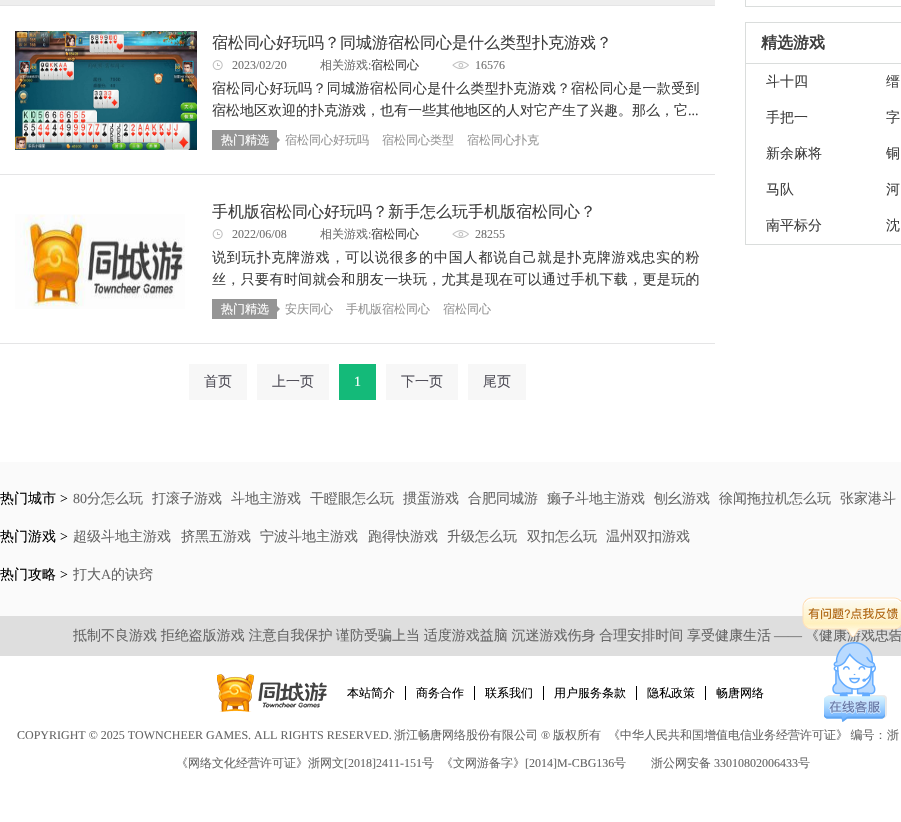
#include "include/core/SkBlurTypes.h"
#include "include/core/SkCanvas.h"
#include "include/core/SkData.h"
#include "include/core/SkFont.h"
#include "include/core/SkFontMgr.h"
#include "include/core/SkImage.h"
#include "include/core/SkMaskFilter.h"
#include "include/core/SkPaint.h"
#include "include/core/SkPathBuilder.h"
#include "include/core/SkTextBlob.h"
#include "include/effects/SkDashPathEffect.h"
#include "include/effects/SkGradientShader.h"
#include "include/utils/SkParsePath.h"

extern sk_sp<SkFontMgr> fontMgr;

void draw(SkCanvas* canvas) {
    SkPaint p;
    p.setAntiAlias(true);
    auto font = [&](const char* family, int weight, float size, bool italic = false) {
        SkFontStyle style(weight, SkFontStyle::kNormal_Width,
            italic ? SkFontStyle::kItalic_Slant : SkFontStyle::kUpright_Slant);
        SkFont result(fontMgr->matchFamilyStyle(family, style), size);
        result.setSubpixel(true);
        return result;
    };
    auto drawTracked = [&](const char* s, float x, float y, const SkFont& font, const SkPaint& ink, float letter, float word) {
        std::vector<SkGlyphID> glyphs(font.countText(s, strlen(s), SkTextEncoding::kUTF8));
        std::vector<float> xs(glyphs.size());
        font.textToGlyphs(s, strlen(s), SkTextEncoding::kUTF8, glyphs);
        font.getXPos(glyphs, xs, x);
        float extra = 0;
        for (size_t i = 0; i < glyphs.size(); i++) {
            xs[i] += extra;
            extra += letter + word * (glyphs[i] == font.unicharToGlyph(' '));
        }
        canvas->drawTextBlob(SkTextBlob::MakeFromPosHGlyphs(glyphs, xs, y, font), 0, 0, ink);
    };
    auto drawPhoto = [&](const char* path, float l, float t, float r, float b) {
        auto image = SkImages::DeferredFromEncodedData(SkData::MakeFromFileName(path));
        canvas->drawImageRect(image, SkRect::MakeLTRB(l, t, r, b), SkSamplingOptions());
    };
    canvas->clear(0xFFFFFFFF);
    {
        const struct { float l, t, r, b; SkColor color; } items[] = {
            {0, 0, 715, 5, 0xFFEEEEEE},
            {0, 5, 715, 6, 0xFFE5E5E6},
            {0, 174, 715, 175, 0xFFE5E5E6},
        };
        for (auto [l, t, r, b, color] : items) {
            p.setColor(color);
            canvas->drawRect(SkRect::MakeLTRB(l, t, r, b), p);
        }
    }
    drawPhoto("media/1.png", 15, 31, 197, 150);
    auto font1 = font("WenQuanYi Zen Hei", 500, 16);
    p.setColor(0xFF3F3F3F);
    canvas->drawString("宿松同心好玩吗？同城游宿松同心是什么类型扑克游戏？", 212, 48, font1, p);
    drawPhoto("media/2.png", 212, 60, 223, 70);
    auto font2 = font("Liberation Serif", 400, 12);
    p.setColor(0xFF707070);
    canvas->drawString("2023/02/20", 232, 69, font2, p);
    auto font3 = font("WenQuanYi Zen Hei", 500, 12);
    canvas->drawString("相关游戏", 320, 69, font3, p);
    canvas->drawString(":", 368, 69, font2, p);
    p.setColor(0xFF3F3F3F);
    canvas->drawString("宿松同心", 371, 69, font3, p);
    drawPhoto("media/3.png", 452, 61, 469, 69);
    p.setColor(0xFF707070);
    canvas->drawString("16576", 475, 69, font2, p);
    auto font4 = font("WenQuanYi Zen Hei", 500, 14);
    p.setColor(0xFF3F3F3F);
    drawTracked("宿松同心好玩吗？同城游宿松同心是什么类型扑克游戏？宿松同心是一款受到", 212, 93, font4, p, 0.35f, 0);
    canvas->drawString("宿松地区欢迎的扑克游戏，也有一些其他地区的人对它产生了兴趣。那么，它", 212, 115, font4, p);
    auto font5 = font("Liberation Serif", 400, 14);
    canvas->drawString("...", 688, 115, font5, p);
    p.setColor(0xFF959595);
    canvas->drawRect(SkRect::MakeLTRB(212, 130, 277, 150), p);
    p.setColor(0xFFFFFFFF);
    canvas->drawString("热门精选", 221, 144, font3, p);
    p.setColor(0xFF959595);
    canvas->drawPath(SkPathBuilder().moveTo(277, 143).lineTo(277, 137).lineTo(280, 140).close().detach(), p);
    {
        const struct { const char* s; float x, y; } items[] = {
            {"宿松同心好玩吗", 285, 144},
            {"宿松同心类型", 382, 144},
            {"宿松同心扑克", 467, 144},
        };
        for (auto [s, x, y] : items) {
            canvas->drawString(s, x, y, font3, p);
        }
    }
    p.setColor(0xFFE5E5E6);
    canvas->drawRect(SkRect::MakeLTRB(0, 343, 715, 344), p);
    drawPhoto("media/4.png", 15, 214, 185, 309);
    p.setColor(0xFF3F3F3F);
    canvas->drawString("手机版宿松同心好玩吗？新手怎么玩手机版宿松同心？", 212, 217, font1, p);
    drawPhoto("media/2.png", 212, 229, 223, 239);
    p.setColor(0xFF707070);
    canvas->drawString("2022/06/08", 232, 238, font2, p);
    canvas->drawString("相关游戏", 320, 238, font3, p);
    canvas->drawString(":", 368, 238, font2, p);
    p.setColor(0xFF3F3F3F);
    canvas->drawString("宿松同心", 371, 238, font3, p);
    drawPhoto("media/3.png", 452, 230, 469, 238);
    p.setColor(0xFF707070);
    canvas->drawString("28255", 475, 238, font2, p);
    p.setColor(0xFF3F3F3F);
    drawTracked("说到玩扑克牌游戏，可以说很多的中国人都说自己就是扑克牌游戏忠实的粉", 212, 262, font4, p, 0.8f, 0);
    drawTracked("丝，只要有时间就会和朋友一块玩，尤其是现在可以通过手机下载，更是玩的", 212, 284, font4, p, 0.35f, 0);
    p.setColor(0xFF959595);
    canvas->drawRect(SkRect::MakeLTRB(212, 299, 277, 319), p);
    p.setColor(0xFFFFFFFF);
    canvas->drawString("热门精选", 221, 313, font3, p);
    p.setColor(0xFF959595);
    canvas->drawPath(SkPathBuilder().moveTo(277, 312).lineTo(277, 306).lineTo(280, 309).close().detach(), p);
    {
        const struct { const char* s; float x, y; } items[] = {
            {"安庆同心", 285, 313},
            {"手机版宿松同心", 346, 313},
            {"宿松同心", 443, 313},
        };
        for (auto [s, x, y] : items) {
            canvas->drawString(s, x, y, font3, p);
        }
    }
    p.setColor(0xFFF7F7F7);
    canvas->drawRect(SkRect::MakeLTRB(189, 364, 247, 400), p);
    p.setColor(0xFF52505A);
    canvas->drawString("首页", 204, 386, font4, p);
    p.setColor(0xFFF7F7F7);
    canvas->drawRect(SkRect::MakeLTRB(257, 364, 329, 400), p);
    p.setColor(0xFF52505A);
    canvas->drawString("上一页", 272, 386, font4, p);
    p.setColor(0xFF14BA79);
    canvas->drawRect(SkRect::MakeLTRB(339, 364, 376, 400), p);
    p.setColor(0xFFFFFFFF);
    canvas->drawString("1", 354, 386, font5, p);
    p.setColor(0xFFF7F7F7);
    canvas->drawRect(SkRect::MakeLTRB(386, 364, 458, 400), p);
    p.setColor(0xFF52505A);
    canvas->drawString("下一页", 401, 386, font4, p);
    p.setColor(0xFFF7F7F7);
    canvas->drawRect(SkRect::MakeLTRB(468, 364, 526, 400), p);
    p.setColor(0xFF52505A);
    canvas->drawString("尾页", 483, 386, font4, p);
    p.setStyle(SkPaint::kStroke_Style);
    p.setStrokeWidth(1);
    p.setColor(0xFFDADDDC);
    canvas->drawRect(SkRect::MakeLTRB(745.5f, -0.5f, 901.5f, 6.5f), p);
    canvas->drawRect(SkRect::MakeLTRB(745.5f, 22.5f, 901.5f, 244.5f), p);
    p.setStyle(SkPaint::kFill_Style);
    canvas->drawRect(SkRect::MakeLTRB(746, 63, 901, 64), p);
    auto font6 = font("WenQuanYi Zen Hei", 700, 16);
    p.setColor(0xFF3F3F3F);
    canvas->drawString("精选游戏", 761, 48, font6, p);
    {
        const struct { const char* s; float x, y; } items[] = {
            {"斗十四", 766, 86},
            {"缙", 886, 86},
            {"手把一", 766, 122},
            {"字", 886, 122},
            {"新余麻将", 766, 158},
            {"铜", 886, 158},
            {"马队", 766, 194},
            {"河", 886, 194},
            {"南平标分", 766, 230},
            {"沈", 886, 230},
        };
        for (auto [s, x, y] : items) {
            canvas->drawString(s, x, y, font4, p);
        }
    }
    p.setColor(0xFFFAFAFA);
    canvas->drawRect(SkRect::MakeLTRB(0, 462, 901, 616), p);
    p.setColor(0xFF000000);
    canvas->drawString("热门城市", 0, 503, font4, p);
    canvas->drawString(">", 60, 503, font5, p);
    p.setColor(0xFF666666);
    canvas->drawString("80", 73, 503, font5, p);
    {
        const struct { const char* s; float x, y; } items[] = {
            {"分怎么玩", 87, 503},
            {"打滚子游戏", 152, 503},
            {"斗地主游戏", 231, 503},
            {"干瞪眼怎么玩", 310, 503},
            {"掼蛋游戏", 403, 503},
            {"合肥同城游", 468, 503},
            {"癞子斗地主游戏", 547, 503},
            {"刨幺游戏", 654, 503},
            {"徐闻拖拉机怎么玩", 719, 503},
            {"张家港斗", 840, 503},
        };
        for (auto [s, x, y] : items) {
            canvas->drawString(s, x, y, font4, p);
        }
    }
    p.setColor(0xFF000000);
    canvas->drawString("热门游戏", 0, 541, font4, p);
    canvas->drawString(">", 60, 541, font5, p);
    p.setColor(0xFF666666);
    {
        const struct { const char* s; float x, y; } items[] = {
            {"超级斗地主游戏", 73, 541},
            {"挤黑五游戏", 181, 541},
            {"宁波斗地主游戏", 260, 541},
            {"跑得快游戏", 368, 541},
            {"升级怎么玩", 447, 541},
            {"双扣怎么玩", 527, 541},
            {"温州双扣游戏", 606, 541},
        };
        for (auto [s, x, y] : items) {
            canvas->drawString(s, x, y, font4, p);
        }
    }
    p.setColor(0xFF000000);
    canvas->drawString("热门攻略", 0, 579, font4, p);
    canvas->drawString(">", 60, 579, font5, p);
    p.setColor(0xFF666666);
    canvas->drawString("打大", 73, 579, font4, p);
    canvas->drawString("A", 101, 579, font5, p);
    canvas->drawString("的诀窍", 111, 579, font4, p);
    p.setColor(0xFFDEDEDE);
    canvas->drawRect(SkRect::MakeLTRB(0, 616, 901, 656), p);
    p.setColor(0xFF666666);
    drawTracked("抵制不良游戏 拒绝盗版游戏 注意自我保护 谨防受骗上当 适度游戏益脑 沉迷游戏伤身 合理安排时间 享受健康生活", 73, 640, font4, p, 0, -0.5f);
    canvas->drawString("——", 774, 640, font5, p);
    canvas->drawString("《健康游戏忠告", 805, 640, font4, p);
    drawPhoto("media/5.png", 217, 674, 327, 712);
    p.setColor(0xFF000000);
    canvas->drawString("本站简介", 347, 697, font3, p);
    canvas->drawRect(SkRect::MakeLTRB(405, 686, 406, 700), p);
    canvas->drawString("商务合作", 416, 697, font3, p);
    canvas->drawRect(SkRect::MakeLTRB(474, 686, 475, 700), p);
    canvas->drawString("联系我们", 485, 697, font3, p);
    canvas->drawRect(SkRect::MakeLTRB(543, 686, 544, 700), p);
    canvas->drawString("用户服务条款", 554, 697, font3, p);
    canvas->drawRect(SkRect::MakeLTRB(636, 686, 637, 700), p);
    canvas->drawString("隐私政策", 647, 697, font3, p);
    canvas->drawRect(SkRect::MakeLTRB(705, 686, 706, 700), p);
    canvas->drawString("畅唐网络", 716, 697, font3, p);
    p.setColor(0xFF666666);
    canvas->drawString("COPYRIGHT © 2025 TOWNCHEER GAMES. ALL RIGHTS RESERVED.", 17, 739, font2, p);
    canvas->drawString("浙江畅唐网络股份有限公司", 394, 739, font3, p);
    canvas->drawString("®", 541, 739, font2, p);
    canvas->drawString("版权所有", 553, 739, font3, p);
    drawTracked("《中华人民共和国增值电信业务经营许可证》 编号：", 608, 739, font3, p, 0, -1);
    canvas->drawString("浙", 887, 739, font3, p);
    canvas->drawString("《网络文化经营许可证》浙网文", 176, 767, font3, p);
    canvas->drawString("[2018]2411-151", 344, 767, font2, p);
    canvas->drawString("号", 422, 767, font3, p);
    canvas->drawString("《文网游备字》", 441, 767, font3, p);
    canvas->drawString("[2014]M-CBG136", 525, 767, font2, p);
    canvas->drawString("号", 614, 767, font3, p);
    canvas->drawString("浙公网安备", 651, 767, font3, p);
    canvas->drawString("33010802006433", 714, 767, font2, p);
    canvas->drawString("号", 798, 767, font3, p);
    drawPhoto("media/6.png", 824, 642, 887, 722);
    drawPhoto("media/7.png", 802, 597, 901, 637);
    auto font7 = font("Liberation Serif", 400, 20);
    p.setColor(0xFF959595);
    canvas->drawString("×", 887, 643, font7, p);
}
